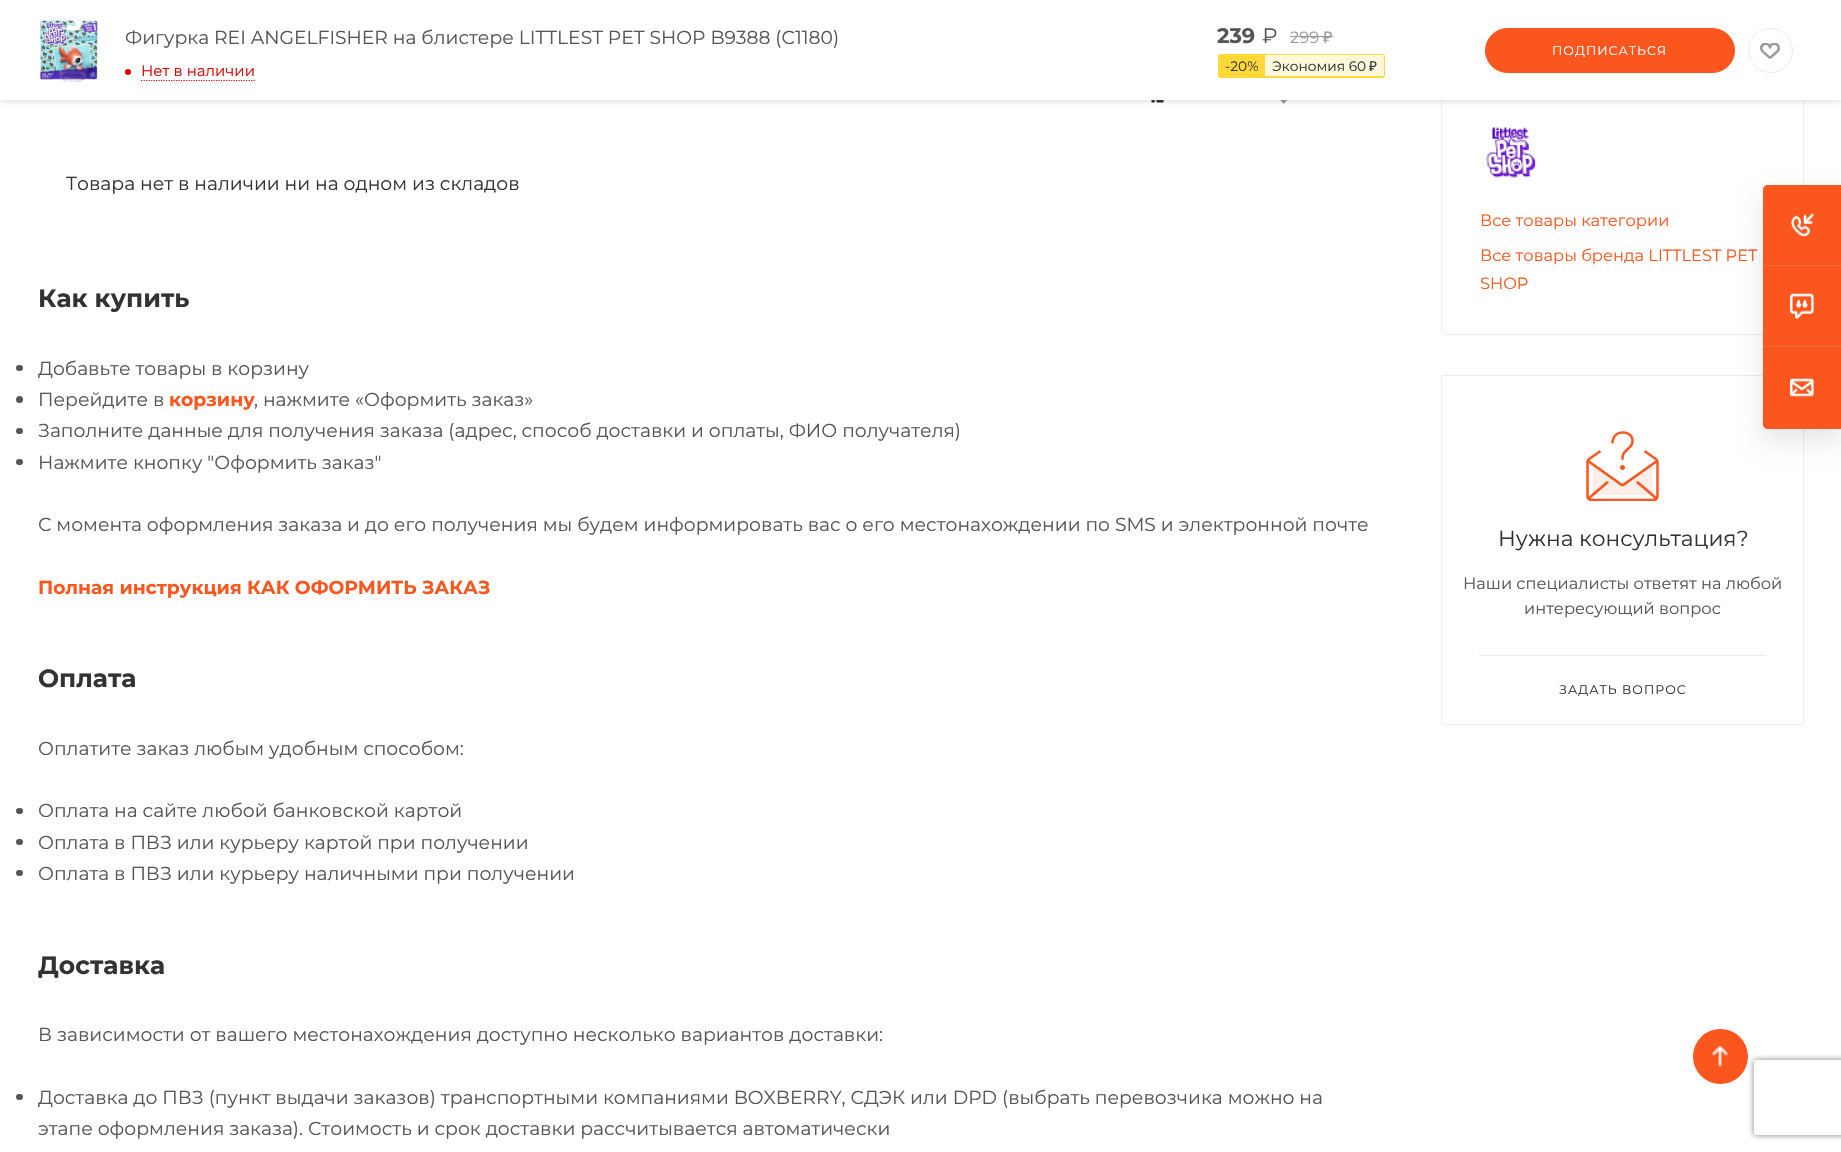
#include "include/core/SkBlurTypes.h"
#include "include/core/SkCanvas.h"
#include "include/core/SkData.h"
#include "include/core/SkFont.h"
#include "include/core/SkFontMgr.h"
#include "include/core/SkImage.h"
#include "include/core/SkMaskFilter.h"
#include "include/core/SkPaint.h"
#include "include/core/SkPathBuilder.h"
#include "include/core/SkTextBlob.h"
#include "include/effects/SkDashPathEffect.h"
#include "include/effects/SkGradientShader.h"
#include "include/utils/SkParsePath.h"

extern sk_sp<SkFontMgr> fontMgr;

void draw(SkCanvas* canvas) {
    SkPaint p;
    p.setAntiAlias(true);
    auto font = [&](const char* family, int weight, float size, bool italic = false) {
        SkFontStyle style(weight, SkFontStyle::kNormal_Width,
            italic ? SkFontStyle::kItalic_Slant : SkFontStyle::kUpright_Slant);
        SkFont result(fontMgr->matchFamilyStyle(family, style), size);
        result.setSubpixel(true);
        return result;
    };
    auto drawTracked = [&](const char* s, float x, float y, const SkFont& font, const SkPaint& ink, float letter, float word) {
        std::vector<SkGlyphID> glyphs(font.countText(s, strlen(s), SkTextEncoding::kUTF8));
        std::vector<float> xs(glyphs.size());
        font.textToGlyphs(s, strlen(s), SkTextEncoding::kUTF8, glyphs);
        font.getXPos(glyphs, xs, x);
        float extra = 0;
        for (size_t i = 0; i < glyphs.size(); i++) {
            xs[i] += extra;
            extra += letter + word * (glyphs[i] == font.unicharToGlyph(' '));
        }
        canvas->drawTextBlob(SkTextBlob::MakeFromPosHGlyphs(glyphs, xs, y, font), 0, 0, ink);
    };
    auto drawPhoto = [&](const char* path, float l, float t, float r, float b) {
        auto image = SkImages::DeferredFromEncodedData(SkData::MakeFromFileName(path));
        canvas->drawImageRect(image, SkRect::MakeLTRB(l, t, r, b), SkSamplingOptions());
    };
    canvas->clear(0xFFFFFFFF);
    drawPhoto("media/3.png", 1151, 100, 1164, 103);
    drawPhoto("media/4.png", 1280, 100, 1287, 104);
    p.setStyle(SkPaint::kStroke_Style);
    p.setStrokeWidth(1);
    p.setColor(0xFFECECEC);
    canvas->drawRoundRect(SkRect::MakeLTRB(1441.5f, 83.5f, 1803.5f, 334.5f), 3.5f, 3.5f, p);
    p.setStyle(SkPaint::kFill_Style);
    p.setColor(0x24000000);
    p.setMaskFilter(SkMaskFilter::MakeBlur(kNormal_SkBlurStyle, 3));
    canvas->drawRect(SkRect::MakeLTRB(0, 1, 1841, 101), p);
    p.setMaskFilter(nullptr);
    p.setColor(0xFFFFFFFF);
    canvas->drawRect(SkRect::MakeLTRB(0, 0, 1841, 100), p);
    drawPhoto("media/1.png", 40, 20, 98, 83);
    auto font1 = font("Montserrat", 400, 18.75f);
    p.setColor(0xFF555555);
    canvas->drawString("Фигурка REI ANGELFISHER на блистере LITTLEST PET SHOP B9388 (C1180)", 125, 44, font1, p);
    p.setColor(0xFFE10000);
    canvas->drawCircle(128, 72, 3, p);
    auto font2 = font("Montserrat", 400, 15);
    canvas->drawString("Нет в наличии", 141, 76, font2, p);
    p.setStyle(SkPaint::kStroke_Style);
    p.setStrokeWidth(1.2f);
    p.setPathEffect(SkDashPathEffect::Make({{1.25f, 1.25f}}, 0));
    canvas->drawPath(SkPathBuilder().moveTo(141, 80.5f).lineTo(255, 80.5f).detach(), p);
    p.setPathEffect(nullptr);
    auto font3 = font("Montserrat", 700, 21);
    p.setStyle(SkPaint::kFill_Style);
    p.setColor(0xFF555555);
    canvas->drawString("239", 1217, 43, font3, p);
    auto font4 = font("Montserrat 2", 400, 21);
    canvas->drawString("₽", 1262, 43, font4, p);
    auto font5 = font("Montserrat", 400, 16.25f);
    p.setColor(0xFF999999);
    canvas->drawString("299", 1290, 43, font5, p);
    canvas->drawRect(SkRect::MakeLTRB(1290, 36, 1319, 37), p);
    auto font6 = font("Noto Sans", 400, 16.25f);
    canvas->drawString("₽", 1323, 43, font6, p);
    canvas->drawRect(SkRect::MakeLTRB(1319, 36, 1333, 37), p);
    p.setColor(0xFFFFD83A);
    canvas->drawRoundRect(SkRect::MakeLTRB(1218, 54, 1385, 78), 2.5f, 2.5f, p);
    auto font7 = font("Montserrat", 400, 13.75f);
    p.setColor(0xFF333333);
    canvas->drawString("-20%", 1225, 71, font7, p);
    p.setColor(0xFFFFF8DB);
    canvas->drawRoundRect(SkRect::MakeLTRB(1265, 55, 1384, 76), 1, 1, p);
    p.setColor(0xFF333333);
    canvas->drawString("Экономия 60", 1272, 71, font7, p);
    auto font8 = font("Noto Sans", 400, 13.75f);
    canvas->drawString("₽", 1369, 71, font8, p);
    p.setColor(0xFFFA561E);
    canvas->drawRoundRect(SkRect::MakeLTRB(1485.5f, 28.5f, 1734.5f, 72.5f), 22, 22, p);
    p.setStyle(SkPaint::kStroke_Style);
    p.setStrokeWidth(1);
    canvas->drawRoundRect(SkRect::MakeLTRB(1485.5f, 28.5f, 1734.5f, 72.5f), 22, 22, p);
    auto font9 = font("Montserrat", 400, 12.5f);
    p.setStyle(SkPaint::kFill_Style);
    p.setColor(0xFFFFFFFF);
    drawTracked("ПОДПИСАТЬСЯ", 1552, 55, font9, p, 1, 0);
    p.setStyle(SkPaint::kStroke_Style);
    p.setColor(0xFFECECEC);
    canvas->drawCircle(1770.5f, 50.5f, 22, p);
    drawPhoto("media/2.png", 1760, 43, 1780, 59);
    p.setStyle(SkPaint::kFill_Style);
    p.setColor(0xFF333333);
    canvas->drawString("Товара нет в наличии ни на одном из складов", 66, 190, font1, p);
    auto font10 = font("Montserrat", 700, 25);
    canvas->drawString("Как купить", 38, 307, font10, p);
    p.setColor(0xFF555555);
    canvas->drawRoundRect(SkRect::MakeLTRB(16, 365, 23, 371), 3, 3, p);
    canvas->drawString("Добавьте товары в корзину", 38, 375, font1, p);
    canvas->drawCircle(19.5f, 399.5f, 3.5f, p);
    canvas->drawString("Перейдите в", 38, 406, font1, p);
    auto font11 = font("Montserrat", 700, 18.75f);
    p.setColor(0xFFFA561E);
    canvas->drawString("корзину", 169, 406, font11, p);
    p.setColor(0xFF555555);
    canvas->drawString(", нажмите «Оформить заказ»", 254, 406, font1, p);
    canvas->drawRoundRect(SkRect::MakeLTRB(16, 428, 23, 434), 3, 3, p);
    canvas->drawString("Заполните данные для получения заказа (адрес, способ доставки и оплаты, ФИО получателя)", 38, 437, font1, p);
    canvas->drawRoundRect(SkRect::MakeLTRB(16, 459, 23, 465), 3, 3, p);
    canvas->drawString("Нажмите кнопку \"Оформить заказ\"", 38, 469, font1, p);
    canvas->drawString("С момента оформления заказа и до его получения мы будем информировать вас о его местонахождении по SMS и электронной почте", 38, 531, font1, p);
    p.setColor(0xFFFA561E);
    canvas->drawString("Полная инструкция КАК ОФОРМИТЬ ЗАКАЗ", 38, 594, font11, p);
    p.setColor(0xFF333333);
    canvas->drawString("Оплата", 38, 687, font10, p);
    p.setColor(0xFF555555);
    canvas->drawString("Оплатите заказ любым удобным способом:", 38, 755, font1, p);
    canvas->drawRoundRect(SkRect::MakeLTRB(16, 808, 23, 814), 3, 3, p);
    canvas->drawString("Оплата на сайте любой банковской картой", 38, 817, font1, p);
    canvas->drawRoundRect(SkRect::MakeLTRB(16, 839, 23, 845), 3, 3, p);
    canvas->drawString("Оплата в ПВЗ или курьеру картой при получении", 38, 849, font1, p);
    canvas->drawRoundRect(SkRect::MakeLTRB(16, 870, 23, 876), 3, 3, p);
    canvas->drawString("Оплата в ПВЗ или курьеру наличными при получении", 38, 880, font1, p);
    p.setColor(0xFF333333);
    canvas->drawString("Доставка", 38, 974, font10, p);
    p.setColor(0xFF555555);
    canvas->drawString("В зависимости от вашего местонахождения доступно несколько вариантов доставки:", 38, 1041, font1, p);
    canvas->drawRoundRect(SkRect::MakeLTRB(16, 1094, 23, 1100), 3, 3, p);
    canvas->drawString("Доставка до ПВЗ (пункт выдачи заказов) транспортными компаниями BOXBERRY, СДЭК или DPD (выбрать перевозчика можно на", 38, 1104, font1, p);
    canvas->drawString("этапе оформления заказа). Стоимость и срок доставки рассчитывается автоматически", 38, 1135, font1, p);
    drawPhoto("media/5.png", 1486, 127, 1536, 178);
    p.setColor(0xFFFA561E);
    {
        const struct { const char* s; float x, y; } items[] = {
            {"Все товары категории", 1480, 226},
            {"Все товары бренда LITTLEST PET", 1480, 261},
            {"SHOP", 1480, 289},
        };
        for (auto [s, x, y] : items) {
            canvas->drawString(s, x, y, font5, p);
        }
    }
    p.setStyle(SkPaint::kStroke_Style);
    p.setColor(0xFFECECEC);
    canvas->drawRoundRect(SkRect::MakeLTRB(1441.5f, 375.5f, 1803.5f, 724.5f), 2, 2, p);
    drawPhoto("media/6.png", 1586, 431, 1659, 501);
    auto font12 = font("Montserrat", 400, 21.75f);
    p.setStyle(SkPaint::kFill_Style);
    p.setColor(0xFF333333);
    canvas->drawString("Нужна консультация?", 1498, 546, font12, p);
    p.setColor(0xFF555555);
    canvas->drawString("Наши специалисты ответят на любой", 1463, 589, font5, p);
    canvas->drawString("интересующий вопрос", 1524, 614, font5, p);
    p.setColor(0xFFECECEC);
    canvas->drawRect(SkRect::MakeLTRB(1479, 655, 1766, 656), p);
    p.setColor(0xFF333333);
    drawTracked("ЗАДАТЬ ВОПРОС", 1559, 694, font9, p, 1, 0);
    p.setColor(0x1A000000);
    p.setMaskFilter(SkMaskFilter::MakeBlur(kNormal_SkBlurStyle, 12.5f));
    canvas->drawRoundRect(SkRect::MakeLTRB(1763, 198, 1841, 441), 5, 5, p);
    p.setMaskFilter(nullptr);
    p.setColor(0xFFFA561E);
    canvas->drawPath(SkPathBuilder().moveTo(1768, 185).lineTo(1841, 185).lineTo(1841, 429).lineTo(1768, 429).cubicTo(1765, 429, 1763, 427, 1763, 424).lineTo(1763, 190).cubicTo(1763, 187, 1765, 185, 1768, 185).close().detach(), p);
    p.setColor(0xFFF86D3D);
    canvas->drawRect(SkRect::MakeLTRB(1763, 265, 1841, 266), p);
    drawPhoto("media/7.png", 1791, 213, 1814, 237);
    canvas->drawRect(SkRect::MakeLTRB(1763, 346, 1841, 347), p);
    drawPhoto("media/8.png", 1790, 293, 1814, 319);
    drawPhoto("media/9.png", 1790, 378, 1814, 397);
    canvas->save();
    canvas->clipPath(SkPathBuilder(SkPathFillType::kEvenOdd).moveTo(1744, 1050).lineTo(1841, 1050).lineTo(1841, 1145).lineTo(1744, 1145).close().moveTo(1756.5f, 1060).lineTo(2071.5f, 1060).cubicTo(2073, 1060, 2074, 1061, 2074, 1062.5f).lineTo(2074, 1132.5f).cubicTo(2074, 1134, 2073, 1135, 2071.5f, 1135).lineTo(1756.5f, 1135).cubicTo(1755, 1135, 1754, 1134, 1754, 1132.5f).lineTo(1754, 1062.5f).cubicTo(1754, 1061, 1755, 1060, 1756.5f, 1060).close().detach(), true);
    p.setColor(0xFF808080);
    p.setMaskFilter(SkMaskFilter::MakeBlur(kNormal_SkBlurStyle, 3));
    canvas->drawRoundRect(SkRect::MakeLTRB(1754, 1060, 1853, 1135), 2.5f, 2.5f, p);
    p.setMaskFilter(nullptr);
    canvas->restore();
    p.setColor(0xFFFA561E);
    canvas->drawCircle(1720.5f, 1056.5f, 27.5f, p);
    drawPhoto("media/10.png", 1712, 1045, 1728, 1067);
}
